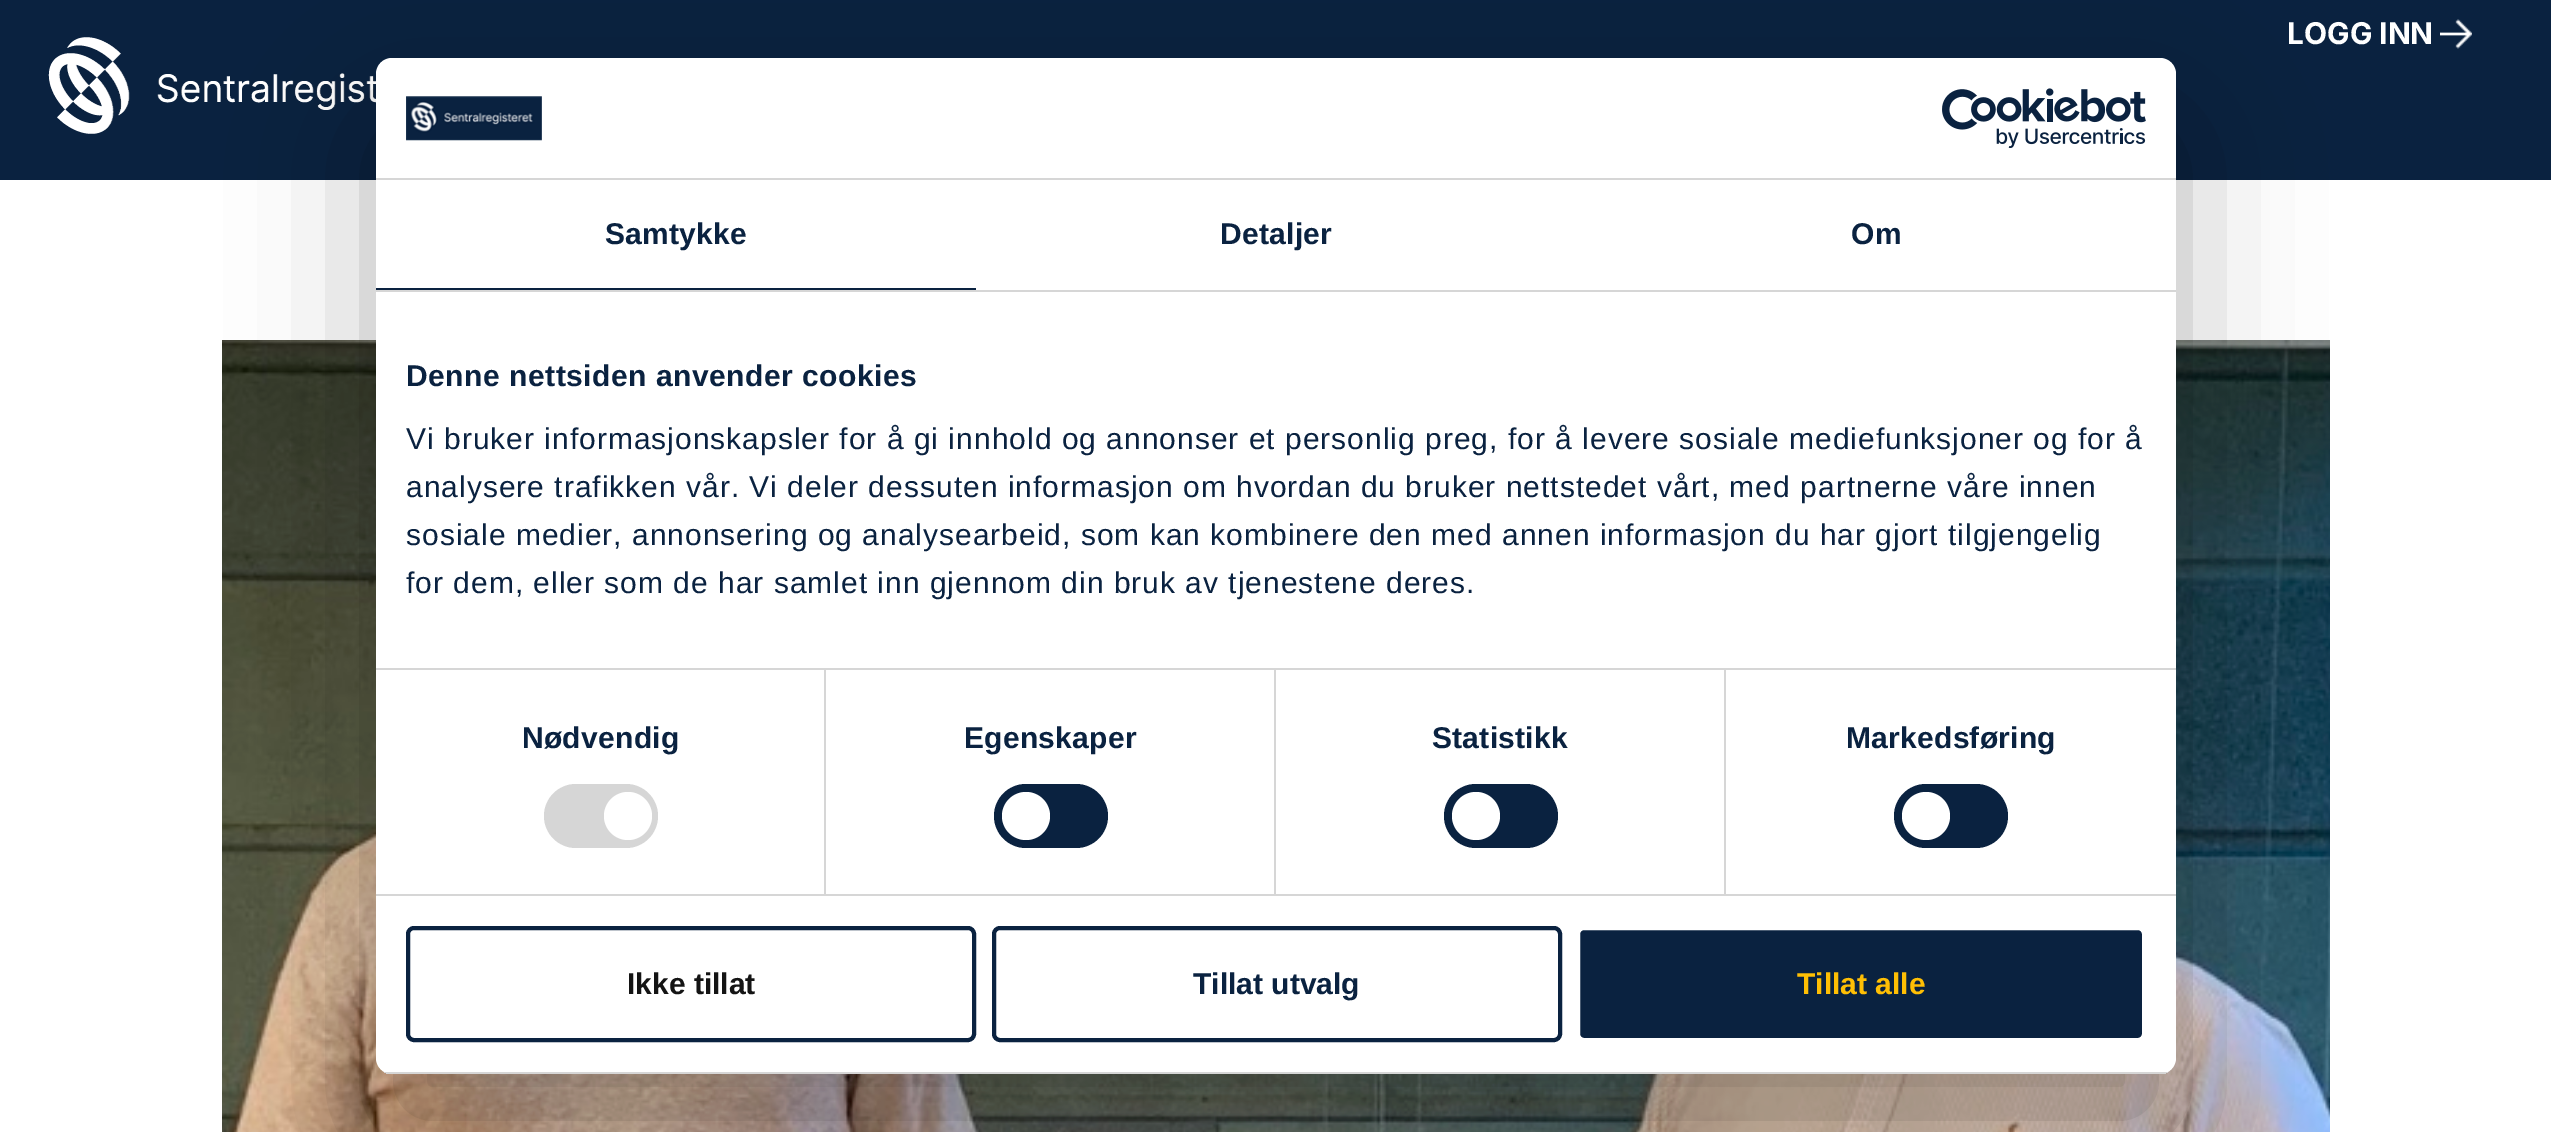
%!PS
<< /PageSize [2551 1132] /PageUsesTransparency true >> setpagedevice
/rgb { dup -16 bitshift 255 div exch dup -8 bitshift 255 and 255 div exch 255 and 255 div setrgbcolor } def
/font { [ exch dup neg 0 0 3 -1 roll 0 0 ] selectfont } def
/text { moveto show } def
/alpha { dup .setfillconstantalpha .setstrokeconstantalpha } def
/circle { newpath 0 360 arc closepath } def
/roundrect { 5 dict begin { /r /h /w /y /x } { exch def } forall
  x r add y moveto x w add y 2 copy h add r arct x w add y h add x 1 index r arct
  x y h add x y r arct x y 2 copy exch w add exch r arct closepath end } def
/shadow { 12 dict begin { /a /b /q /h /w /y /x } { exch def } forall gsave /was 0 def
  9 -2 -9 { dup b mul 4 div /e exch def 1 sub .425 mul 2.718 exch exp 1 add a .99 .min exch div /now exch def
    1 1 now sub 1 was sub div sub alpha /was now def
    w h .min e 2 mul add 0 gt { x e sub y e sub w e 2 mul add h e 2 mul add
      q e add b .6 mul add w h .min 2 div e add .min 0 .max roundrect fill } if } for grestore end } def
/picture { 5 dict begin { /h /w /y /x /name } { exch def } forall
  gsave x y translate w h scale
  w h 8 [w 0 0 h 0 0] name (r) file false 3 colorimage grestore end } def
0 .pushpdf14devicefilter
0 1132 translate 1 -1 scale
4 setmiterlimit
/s1 { /Inter-Bold 30 font 16#FFFFFF rgb } def
/s2 { /LiberationSans-Bold 30 font 16#141414 rgb } def
/s3 { /LiberationSans-Bold 30 font 16#0A2240 rgb } def
/s4 { /LiberationSans-Bold 30 font 16#FFBF04 rgb } def
16#FFFFFF rgb
0 0 2551 1132 rectfill
16#0A2240 rgb
0 0 2551 180 rectfill
s1
(LOGG INN) 2287 44 text
(pic1.raw) 2440 19 32 30 picture
(pic2.raw) 48 37 328 97 picture
(pic3.raw) 222 340 2108 792 picture
16#000000 rgb
376 122 1800 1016 16 68 0.3 shadow
16#FFFFFF rgb
376 58 1800 1016 16 roundrect fill
16#D6D6D6 rgb
376 178 1800 2 rectfill
(pic4.raw) 406 96 136 45 picture
(pic5.raw) 1942 88 204 60 picture
376 290 1800 2 rectfill
16#0A2240 rgb
376 288 600 2 rectfill
/LiberationSans-Bold 30 font
605 244 moveto 0.25 0 (Samtykke) ashow
1220 244 moveto 0.25 0 (Detaljer) ashow
1851 244 moveto 0.25 0 (Om) ashow
16#D6D6D6 rgb
376 668 1800 2 rectfill
16#0A2240 rgb
406 386 moveto 0.5 0 (Denne nettsiden anvender cookies) ashow
/LiberationSans-Regular 30 font
406 449 moveto 1 0 (Vi bruker informasjonskapsler for å gi innhold og annonser et personlig preg, for å levere sosiale mediefunksjoner og for å) ashow
406 497 moveto 1 0 (analysere trafikken vår. Vi deler dessuten informasjon om hvordan du bruker nettstedet vårt, med partnerne våre innen) ashow
406 545 moveto 1 0 (sosiale medier, annonsering og analysearbeid, som kan kombinere den med annen informasjon du har gjort tilgjengelig) ashow
406 593 moveto 1 0 (for dem, eller som de har samlet inn gjennom din bruk av tjenestene deres.) ashow
16#D6D6D6 rgb
376 894 1800 2 rectfill
824 670 2 224 rectfill
/LiberationSans-Bold 30 font
16#0A2240 rgb
522 748 moveto 0.25 0 (Nødvendig) ashow
16#D6D6D6 rgb
544 784 114 64 32 roundrect fill
16#FFFFFF rgb
628 816 24 circle fill
16#D6D6D6 rgb
1274 670 2 224 rectfill
16#0A2240 rgb
964 748 moveto 0.25 0 (Egenskaper) ashow
994 784 114 64 32 roundrect fill
16#FFFFFF rgb
1026 816 24 circle fill
16#D6D6D6 rgb
1724 670 2 224 rectfill
16#0A2240 rgb
1432 748 moveto 0.25 0 (Statistikk) ashow
1444 784 114 64 32 roundrect fill
16#FFFFFF rgb
1476 816 24 circle fill
16#0A2240 rgb
1846 748 moveto 0.25 0 (Markedsføring) ashow
1894 784 114 64 32 roundrect fill
16#FFFFFF rgb
1926 816 24 circle fill
gsave
376 58 1800 1016 16 roundrect clip newpath
16#D6D6D6 rgb
376 1072 1800 2 rectfill
grestore
16#0A2240 rgb
4 setlinewidth
408 928 566 112 6 roundrect stroke
s2
(Ikke tillat) 627 994 text
16#0A2240 rgb
994 928 566 112 6 roundrect stroke
(Tillat utvalg) 1193 994 text
1578 928 566 112 6 roundrect gsave fill grestore
16#FFFFFF rgb
stroke
s4
(Tillat alle) 1797 994 text
.poppdf14devicefilter showpage
